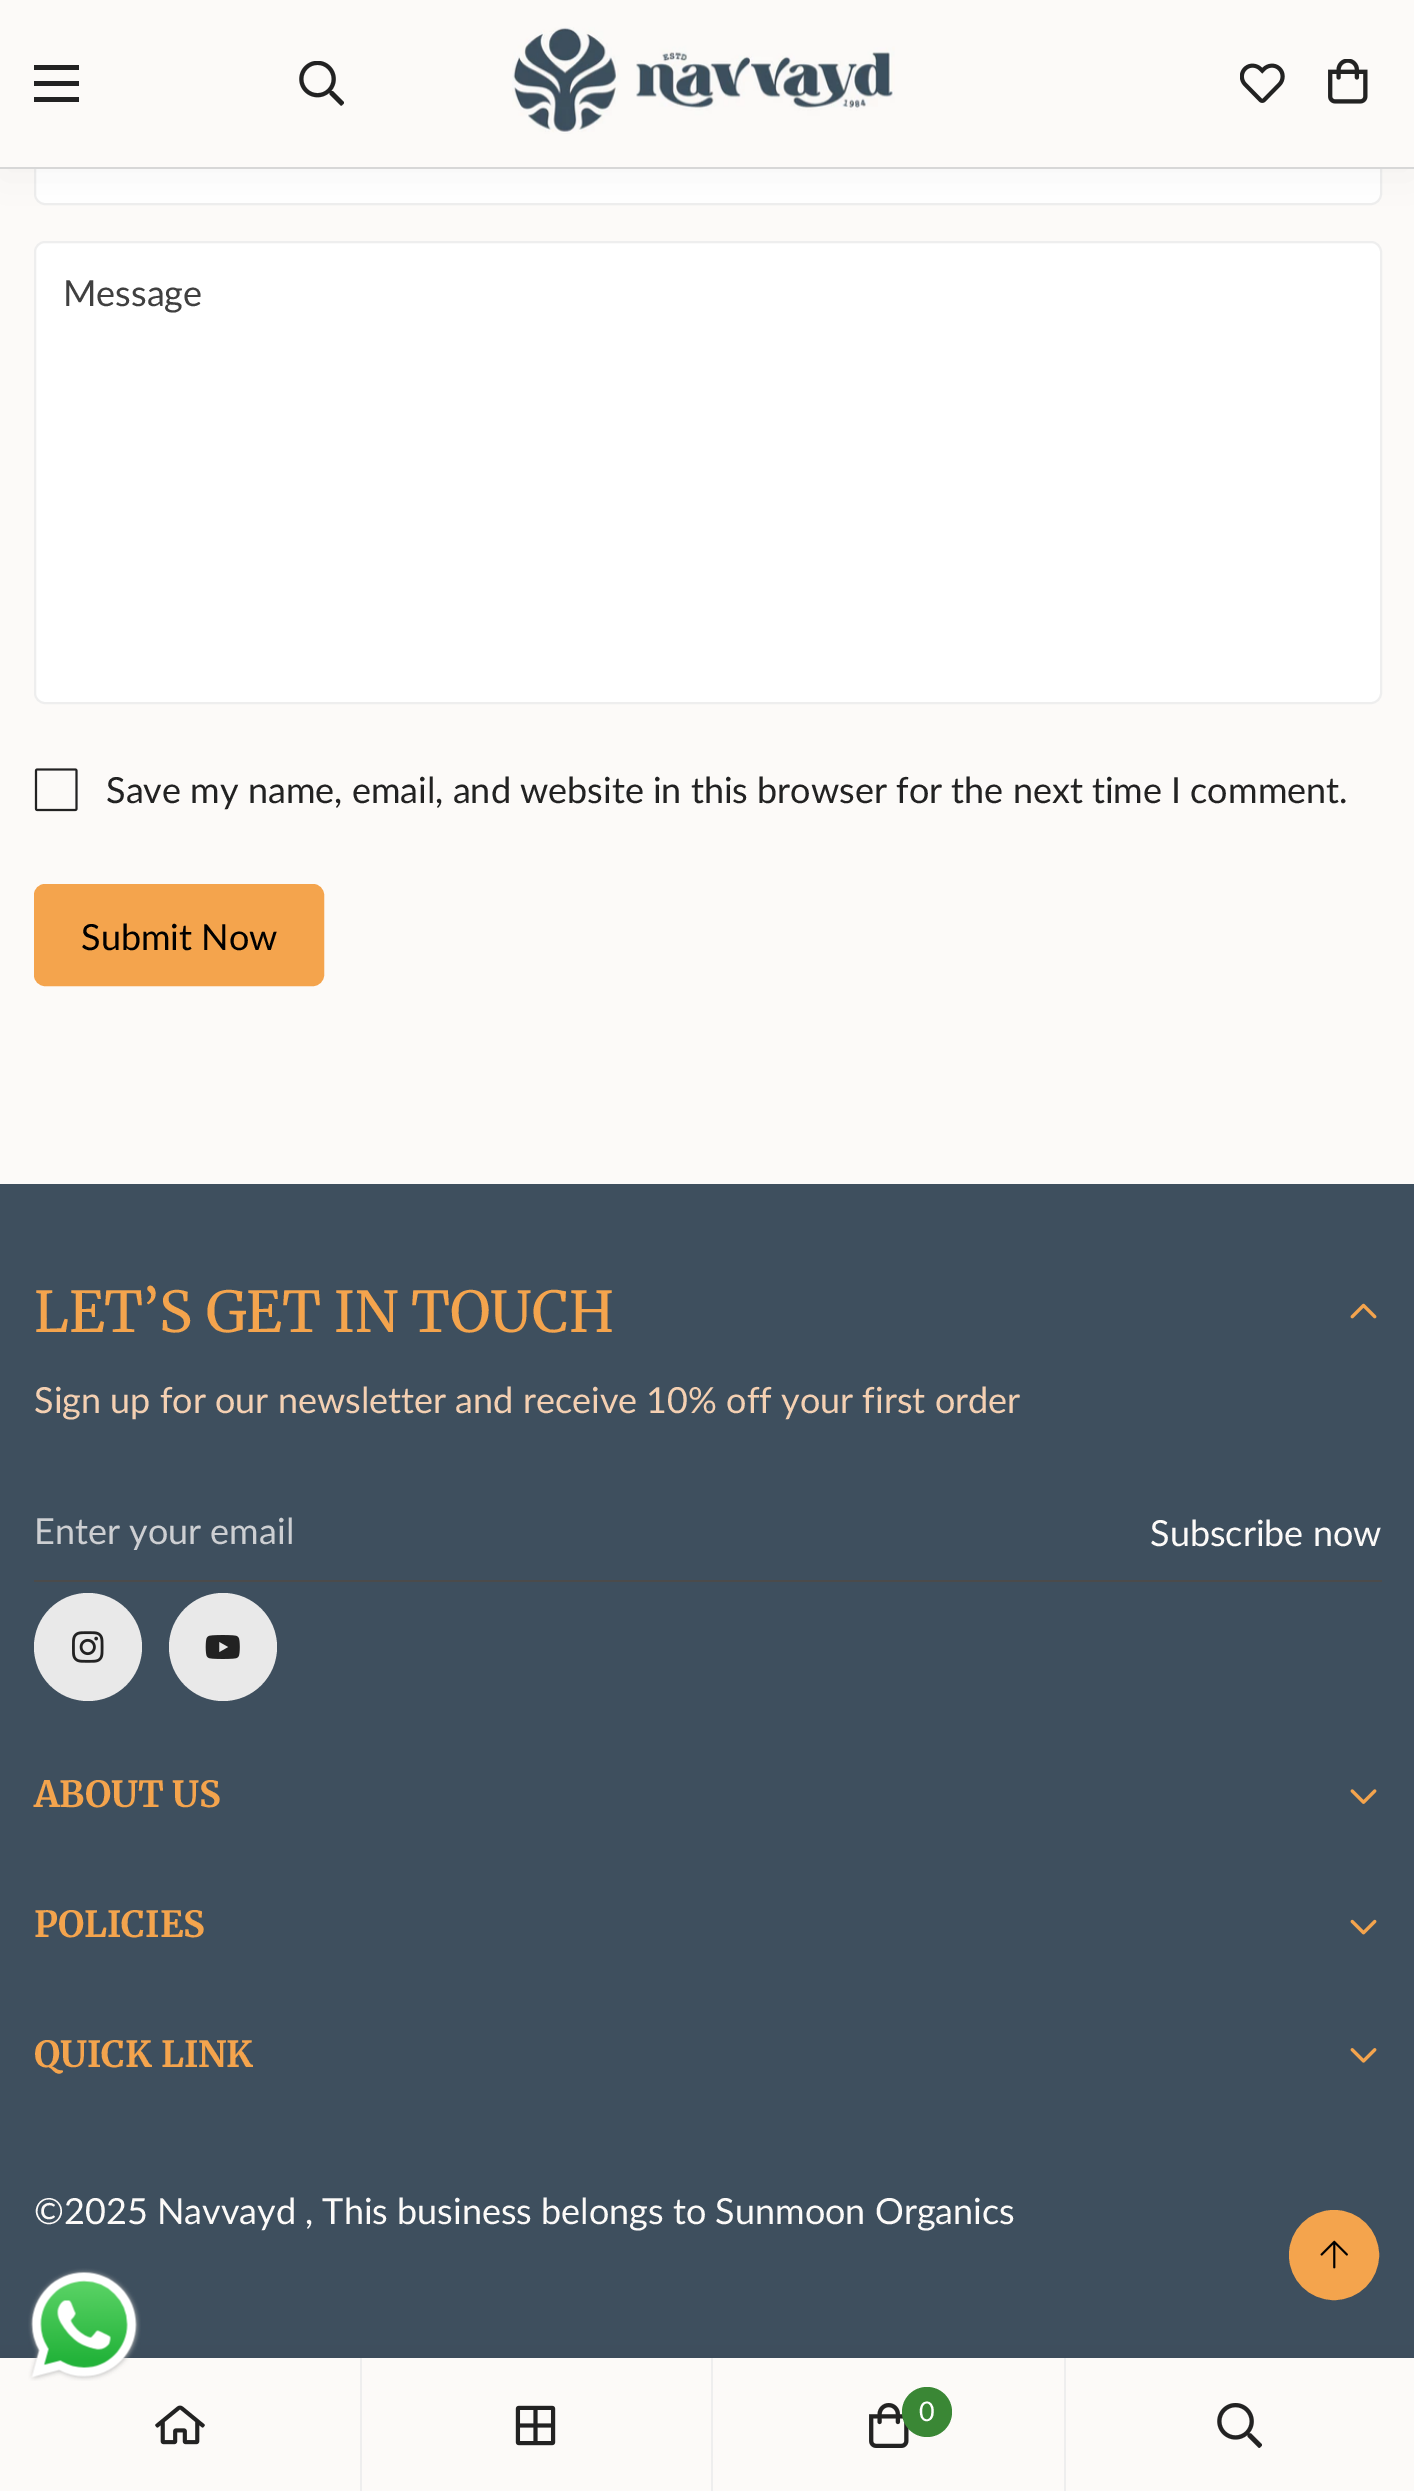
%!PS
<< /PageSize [1414 2491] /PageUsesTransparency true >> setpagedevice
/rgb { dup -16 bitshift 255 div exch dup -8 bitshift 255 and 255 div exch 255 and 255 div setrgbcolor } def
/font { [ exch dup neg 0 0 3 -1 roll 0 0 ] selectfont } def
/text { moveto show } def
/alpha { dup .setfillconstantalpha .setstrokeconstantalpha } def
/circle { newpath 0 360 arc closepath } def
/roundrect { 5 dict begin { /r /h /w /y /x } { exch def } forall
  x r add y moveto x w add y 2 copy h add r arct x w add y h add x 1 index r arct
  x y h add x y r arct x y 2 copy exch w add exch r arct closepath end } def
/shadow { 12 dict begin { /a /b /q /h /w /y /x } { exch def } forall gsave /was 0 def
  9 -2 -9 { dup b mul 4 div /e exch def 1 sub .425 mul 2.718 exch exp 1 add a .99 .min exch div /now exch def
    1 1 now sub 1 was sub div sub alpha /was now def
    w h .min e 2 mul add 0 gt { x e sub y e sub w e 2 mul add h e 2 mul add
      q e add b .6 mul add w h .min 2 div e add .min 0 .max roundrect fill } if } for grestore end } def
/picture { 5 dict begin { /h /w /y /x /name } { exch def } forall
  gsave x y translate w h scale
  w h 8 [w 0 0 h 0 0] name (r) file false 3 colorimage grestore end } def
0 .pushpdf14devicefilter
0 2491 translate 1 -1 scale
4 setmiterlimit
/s1 { /Lato-Regular 36 font 16#404040 rgb } def
/s2 { /Lato-Regular 36 font 16#222222 rgb } def
/s3 { /Lato-Regular 36 font 16#000000 rgb } def
/s4 { /Merriweather-Regular 56.25 font 16#F4A44D rgb } def
/s5 { /Lato-Regular 36 font 16#F4D0B2 rgb } def
/s6 { /Lato-Regular 36 font 16#CDCFD2 rgb } def
/s7 { /Lato-Regular 36 font 16#FCFAF8 rgb } def
/s8 { /Merriweather-Bold 36 font 16#F4A44D rgb } def
/s9 { /Lato-Regular 27 font 16#FFFFFF rgb } def
16#FCFAF8 rgb
0 0 1414 2491 rectfill
16#FFFFFF rgb
35 102 1346 102 10 roundrect gsave fill grestore
16#EEEEEE rgb
2 setlinewidth
stroke
16#FFFFFF rgb
35 242 1346 461 10 roundrect gsave fill grestore
16#EEEEEE rgb
stroke
16#000000 rgb
0 9 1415 169 0 22.5 0.04 shadow
16#FCFAF8 rgb
0 0 1414 167 rectfill
16#D7D7D7 rgb
0 167 1414 2 rectfill
16#222222 rgb
34 81 45 5 rectfill
34 65 45 5 rectfill
34 97 45 5 rectfill
(pic1.raw) 299 61 45 45 picture
(pic2.raw) 512 27 383 107 picture
(pic3.raw) 1240 63 45 40 picture
(pic4.raw) 1328 59 40 45 picture
s1
(Message) 63 306 text
(pic5.raw) 34 768 44 44 picture
s2
(Save my name, email, and website in this browser for the next time I comment.) 106 803 text
16#F4A44D rgb
35 885 288 100 10 roundrect gsave fill grestore
stroke
s3
(Submit Now) 81 950 text
16#3E4F5E rgb
0 1184 1414 1174 rectfill
s4
(LET’S GET IN TOUCH) 34 1332 text
(pic6.raw) 1350 1303 27 16 picture
s5
(Sign up for our newsletter and receive 10% off your first order) 34 1413 text
16#4B4B4B rgb
34 1580 1348 2 rectfill
gsave
34 1508 1321 42 rectclip
s6
(Enter your email) 34 1544 text
grestore
s7
(Subscribe now) 1150 1546 text
16#E9E9E9 rgb
88 1647 54 circle fill
(pic7.raw) 72 1631 32 32 picture
223 1647 54 circle fill
(pic8.raw) 205 1635 35 24 picture
s8
(ABOUT US) 34 1807 text
(pic9.raw) 1350 1789 27 15 picture
(POLICIES) 34 1937 text
(pic10.raw) 1350 1919 27 16 picture
(QUICK LINK) 34 2067 text
(pic11.raw) 1350 2048 27 15 picture
s7
(©2025 Navvayd , This business belongs to Sunmoon Organics) 34 2224 text
16#F4A44D rgb
1334 2255 44 circle gsave fill grestore
stroke
(pic12.raw) 1320 2240 28 29 picture
16#222222 rgb
0 2358 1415 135 0 11 0.12 shadow
16#FCFAF8 rgb
0 2358 1414 133 rectfill
(pic13.raw) 28 2268 113 113 picture
16#EEEEEE rgb
360 2358 2 133 rectfill
(pic14.raw) 155 2405 50 40 picture
711 2358 2 133 rectfill
(pic15.raw) 515 2405 41 41 picture
1064 2358 2 133 rectfill
(pic16.raw) 869 2403 40 45 picture
16#3A8735 rgb
927 2412 25 circle fill
s9
(0) 919 2421 text
(pic17.raw) 1217 2403 45 45 picture
.poppdf14devicefilter showpage
